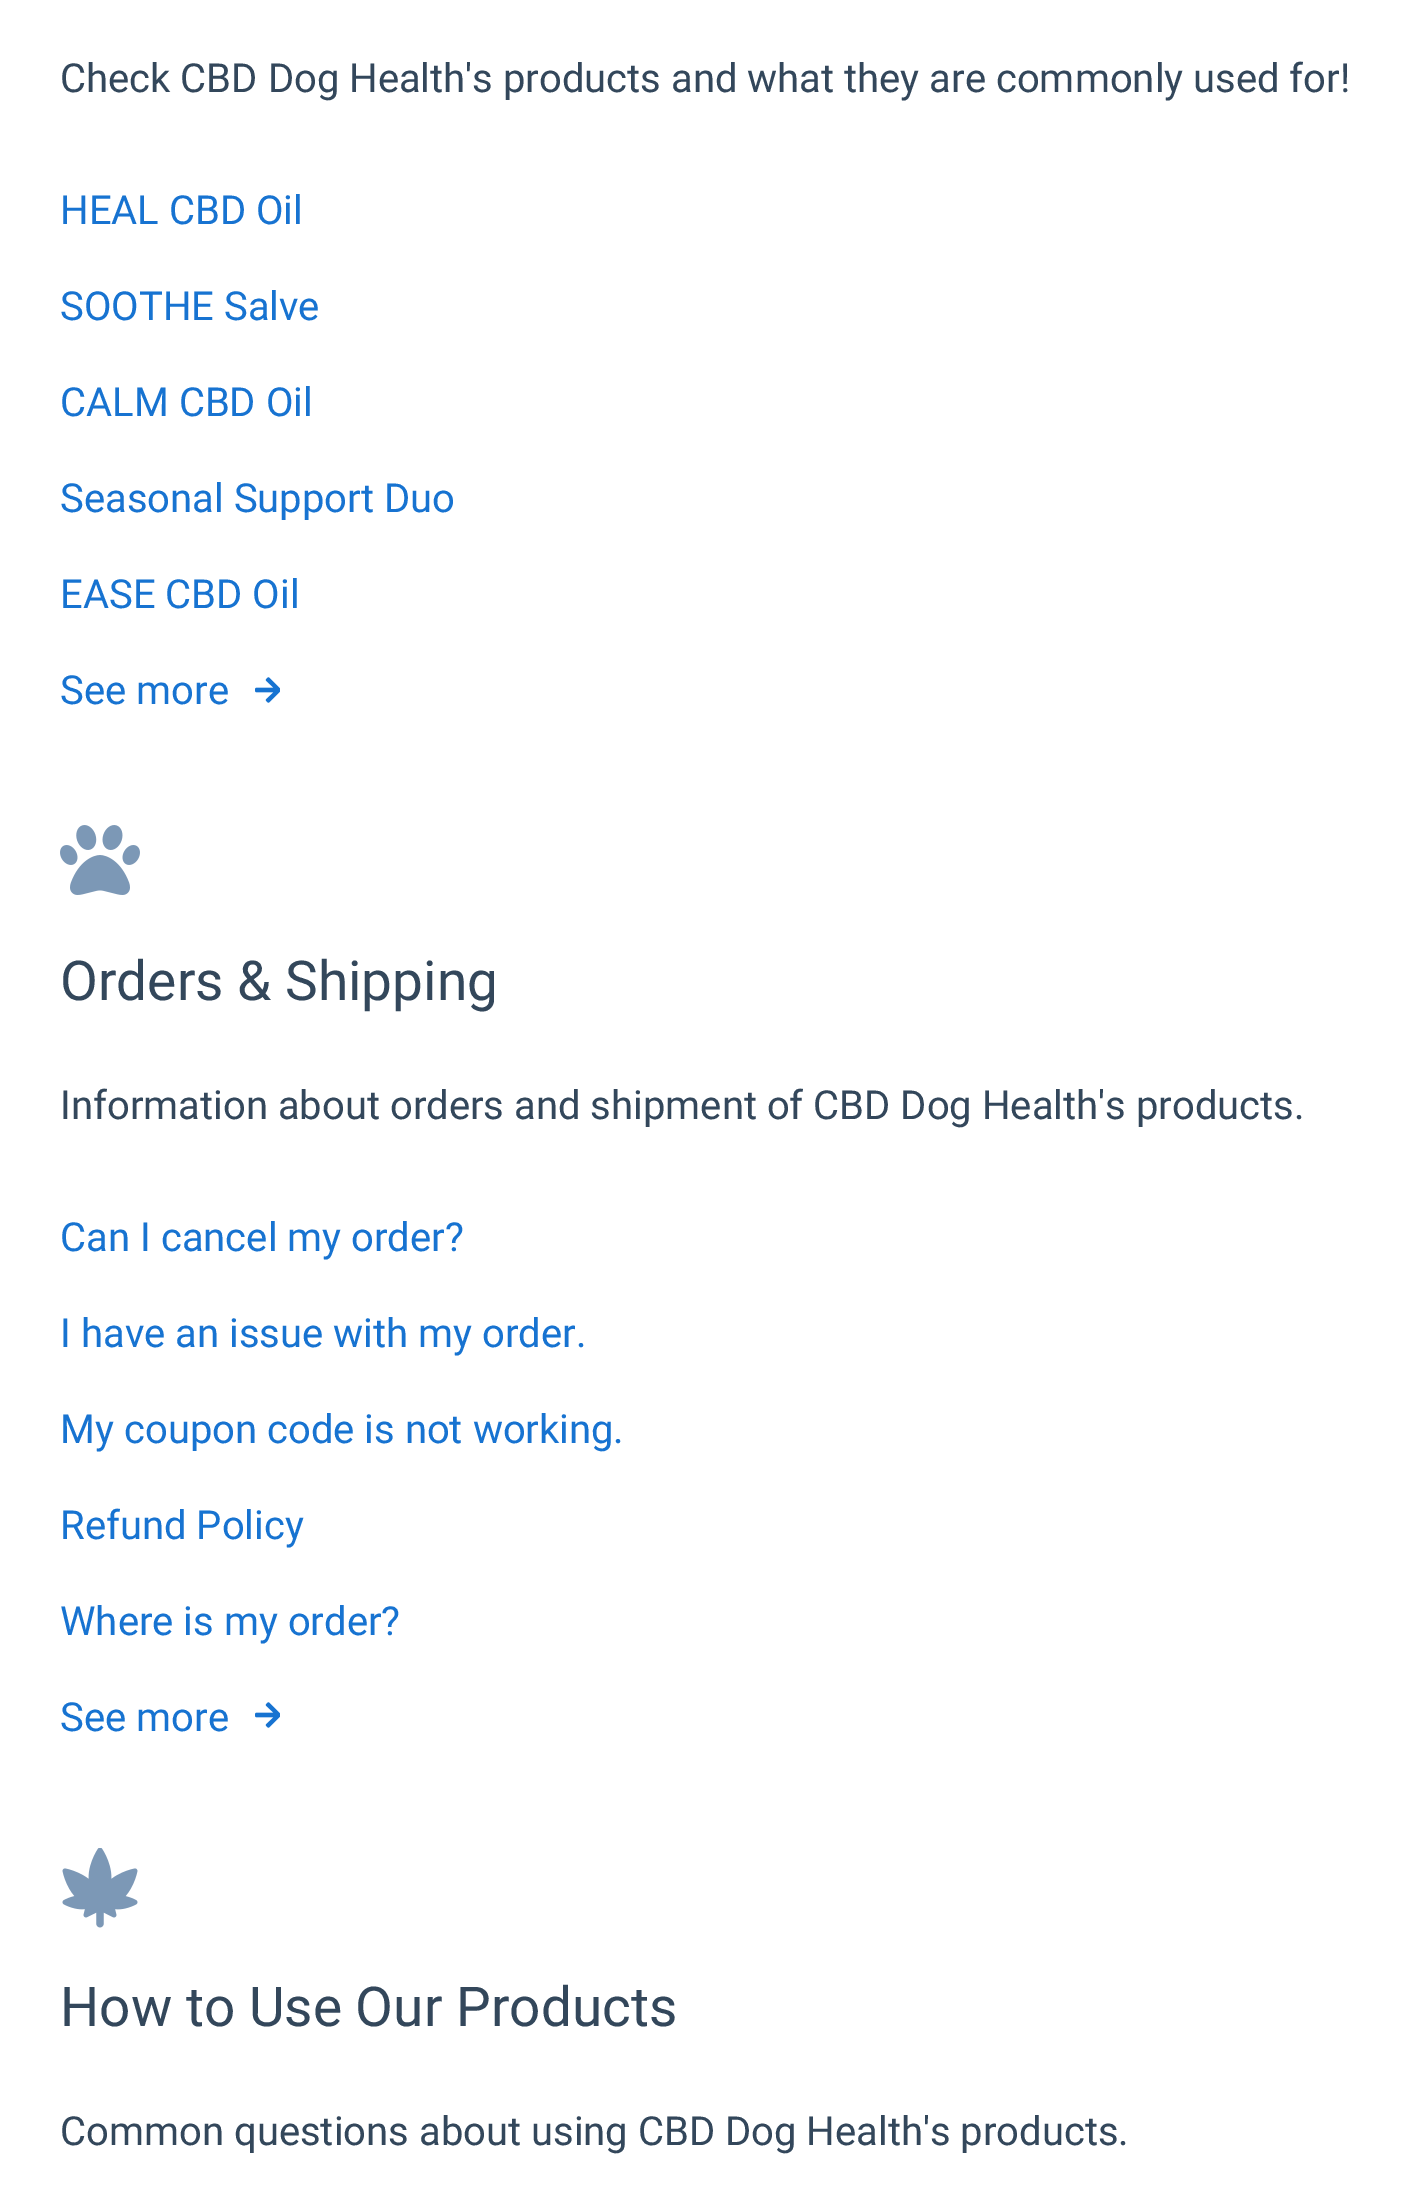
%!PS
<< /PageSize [1424 2185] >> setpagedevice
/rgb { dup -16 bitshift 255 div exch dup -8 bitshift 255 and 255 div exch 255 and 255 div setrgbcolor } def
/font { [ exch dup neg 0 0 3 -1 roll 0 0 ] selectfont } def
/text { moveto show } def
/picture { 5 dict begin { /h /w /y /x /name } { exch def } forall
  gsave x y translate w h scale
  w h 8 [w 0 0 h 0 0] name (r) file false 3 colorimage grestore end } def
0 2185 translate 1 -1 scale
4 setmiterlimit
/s1 { /Roboto-Regular 40 font 16#33475B rgb } def
/s2 { /Roboto-Regular 40 font 16#1773D1 rgb } def
/s3 { /Roboto-Regular 55 font 16#33475B rgb } def
16#FFFFFF rgb
0 0 1424 2185 rectfill
s1
(Check CBD Dog Health's products and what they are commonly used for!) 60 92 text
s2
(HEAL CBD Oil) 60 224 text
(SOOTHE Salve) 60 320 text
(CALM CBD Oil) 60 416 text
(Seasonal Support Duo) 60 512 text
(EASE CBD Oil) 60 608 text
(See more) 60 704 text
(pic1.raw) 255 677 25 26 picture
(pic2.raw) 60 825 80 70 picture
s3
(Orders & Shipping) 60 1000 text
s1
(Information about orders and shipment of CBD Dog Health's products.) 60 1119 text
s2
(Can I cancel my order?) 60 1251 text
(I have an issue with my order.) 60 1347 text
(My coupon code is not working.) 60 1443 text
(Refund Policy) 60 1539 text
(Where is my order?) 60 1635 text
(See more) 60 1731 text
(pic1.raw) 255 1702 25 26 picture
(pic3.raw) 62 1848 76 80 picture
s3
(How to Use Our Products) 60 2026 text
s1
(Common questions about using CBD Dog Health's products.) 60 2145 text
showpage
